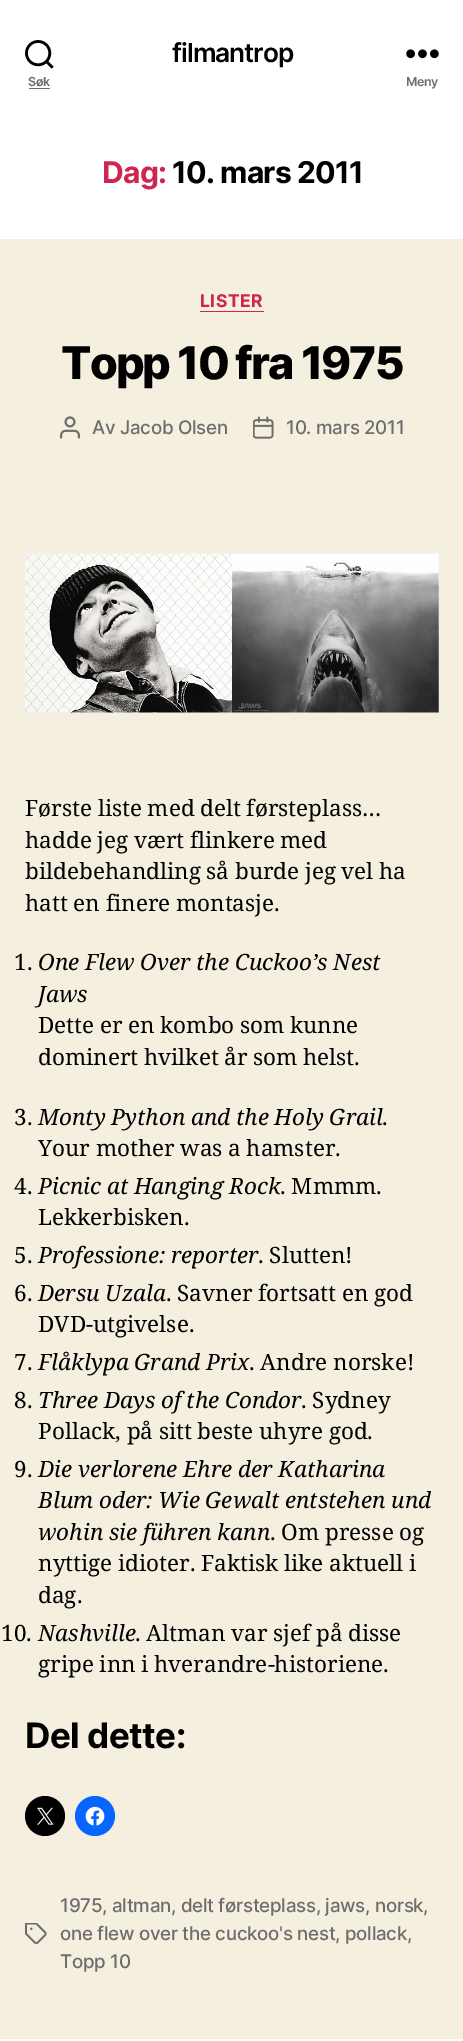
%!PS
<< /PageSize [463 2041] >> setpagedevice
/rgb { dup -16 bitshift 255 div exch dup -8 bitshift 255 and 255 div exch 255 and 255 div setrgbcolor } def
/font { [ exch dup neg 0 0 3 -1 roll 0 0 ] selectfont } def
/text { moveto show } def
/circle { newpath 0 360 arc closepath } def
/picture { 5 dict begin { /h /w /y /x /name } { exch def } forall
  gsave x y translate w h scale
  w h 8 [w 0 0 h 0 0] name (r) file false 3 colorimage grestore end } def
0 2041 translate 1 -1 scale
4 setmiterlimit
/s1 { /NotoSerif-Regular 22.5 font 16#000000 rgb } def
/s2 { /NotoSerif-Italic 22.5 font 16#000000 rgb } def
16#F5EFE0 rgb
0 0 463 2041 rectfill
16#FFFFFF rgb
0 0 463 239 rectfill
/Inter-SemiBold 26.25 font
16#000000 rgb
172 62 moveto -1 0 (filmantrop) ashow
(pic1.raw) 25 40 29 29 picture
/Inter-SemiBold 12.5 font
16#6D6D6D rgb
28 86 moveto -0.5 0 (Søk) ashow
29 88 21 1 rectfill
(pic2.raw) 406 49 33 10 picture
406 86 moveto -0.5 0 (Meny) ashow
/Inter-Bold 30 font
16#CD2653 rgb
102 183 moveto -0.75 0 (Dag:) ashow
16#000000 rgb
172 183 moveto -0.75 0 (10. mars 2011) ashow
16#CD2653 rgb
200 311 64 1 rectfill
/Inter-Bold 17.5 font
200 307 moveto 0.5 0 (LISTER) ashow
/Inter-ExtraBold 45 font
16#000000 rgb
61 379 moveto -1.9 0 (Topp 10 fra 1975) ashow
(pic3.raw) 60 416 20 23 picture
/Inter-Medium 18.75 font
16#6D6D6D rgb
92 434 moveto -0.3 0 (Av Jacob Olsen) ashow
(pic4.raw) 253 416 21 23 picture
286 434 moveto -0.3 0 (10. mars 2011) ashow
(pic5.raw) 25 553 414 160 picture
/NotoSerif-Regular 22.5 font
16#000000 rgb
25 816 moveto -0.25 0 32 (Første liste med delt førsteplass…) widthshow
25 848 moveto -0.25 0 32 (hadde jeg vært flinkere med) widthshow
25 879 moveto -0.25 0 32 (bildebehandling så burde jeg vel ha) widthshow
25 911 moveto -0.25 0 32 (hatt en finere montasje.) widthshow
(1.) 14 970 text
/NotoSerif-Italic 22.5 font
38 970 moveto -0.25 0 32 (One Flew Over the Cuckoo’s Nest) widthshow
(Jaws) 38 1002 text
/NotoSerif-Regular 22.5 font
38 1033 moveto -0.25 0 32 (Dette er en kombo som kunne) widthshow
38 1065 moveto -0.25 0 32 (dominert hvilket år som helst.) widthshow
(3.) 14 1125 text
/NotoSerif-Italic 22.5 font
38 1125 moveto -0.25 0 32 (Monty Python and the Holy Grail) widthshow
s1
(.) 382 1125 text
38 1156 moveto -0.25 0 32 (Your mother was a hamster.) widthshow
(4.) 14 1194 text
/NotoSerif-Italic 22.5 font
38 1194 moveto -0.25 0 32 (Picnic at Hanging Rock) widthshow
s1
(. Mmmm.) 280 1194 text
(Lekkerbisken.) 38 1225 text
(5.) 14 1263 text
/NotoSerif-Italic 22.5 font
38 1263 moveto -0.25 0 32 (Professione: reporter) widthshow
s1
(. Slutten!) 258 1263 text
(6.) 14 1301 text
/NotoSerif-Italic 22.5 font
38 1301 moveto -0.25 0 32 (Dersu Uzala) widthshow
/NotoSerif-Regular 22.5 font
166 1301 moveto -0.25 0 32 (. Savner fortsatt en god) widthshow
(DVD-utgivelse.) 38 1332 text
(7.) 14 1370 text
/NotoSerif-Italic 22.5 font
38 1370 moveto -0.25 0 32 (Flåklypa Grand Prix) widthshow
s1
(. Andre norske!) 249 1370 text
(8.) 14 1408 text
/NotoSerif-Italic 22.5 font
38 1408 moveto -0.25 0 32 (Three Days of the Condor) widthshow
s1
(. Sydney) 301 1408 text
38 1439 moveto -0.25 0 32 (Pollack, på sitt beste uhyre god.) widthshow
(9.) 14 1477 text
/NotoSerif-Italic 22.5 font
38 1477 moveto -0.25 0 32 (Die verlorene Ehre der Katharina) widthshow
38 1508 moveto -0.25 0 32 (Blum oder: Wie Gewalt entstehen und) widthshow
38 1540 moveto -0.25 0 32 (wohin sie führen kann) widthshow
/NotoSerif-Regular 22.5 font
270 1540 moveto -0.25 0 32 (. Om presse og) widthshow
38 1571 moveto -0.25 0 32 (nyttige idioter. Faktisk like aktuell i) widthshow
(dag.) 38 1603 text
(10.) 1 1641 text
s2
(Nashville) 38 1641 text
/NotoSerif-Regular 22.5 font
135 1641 moveto -0.25 0 32 (. Altman var sjef på disse) widthshow
38 1672 moveto -0.25 0 32 (gripe inn i hverandre-historiene.) widthshow
/Inter-Bold 35 font
25 1748 moveto -0.5 0 (Del dette:) ashow
45 1816 20 circle fill
(pic6.raw) 37 1807 17 18 picture
16#0866FF rgb
95 1816 20 circle fill
(pic7.raw) 85 1806 20 20 picture
(pic8.raw) 25 1923 22 22 picture
/Inter-Medium 18.75 font
16#6D6D6D rgb
60 1912 moveto -0.3 0 (1975, altman, delt førsteplass, jaws, norsk,) ashow
60 1940 moveto -0.3 0 (one flew over the cuckoo's nest, pollack,) ashow
60 1968 moveto -0.3 0 (Topp 10) ashow
16#FFFFFF rgb
0 2039 463 2 rectfill
showpage
